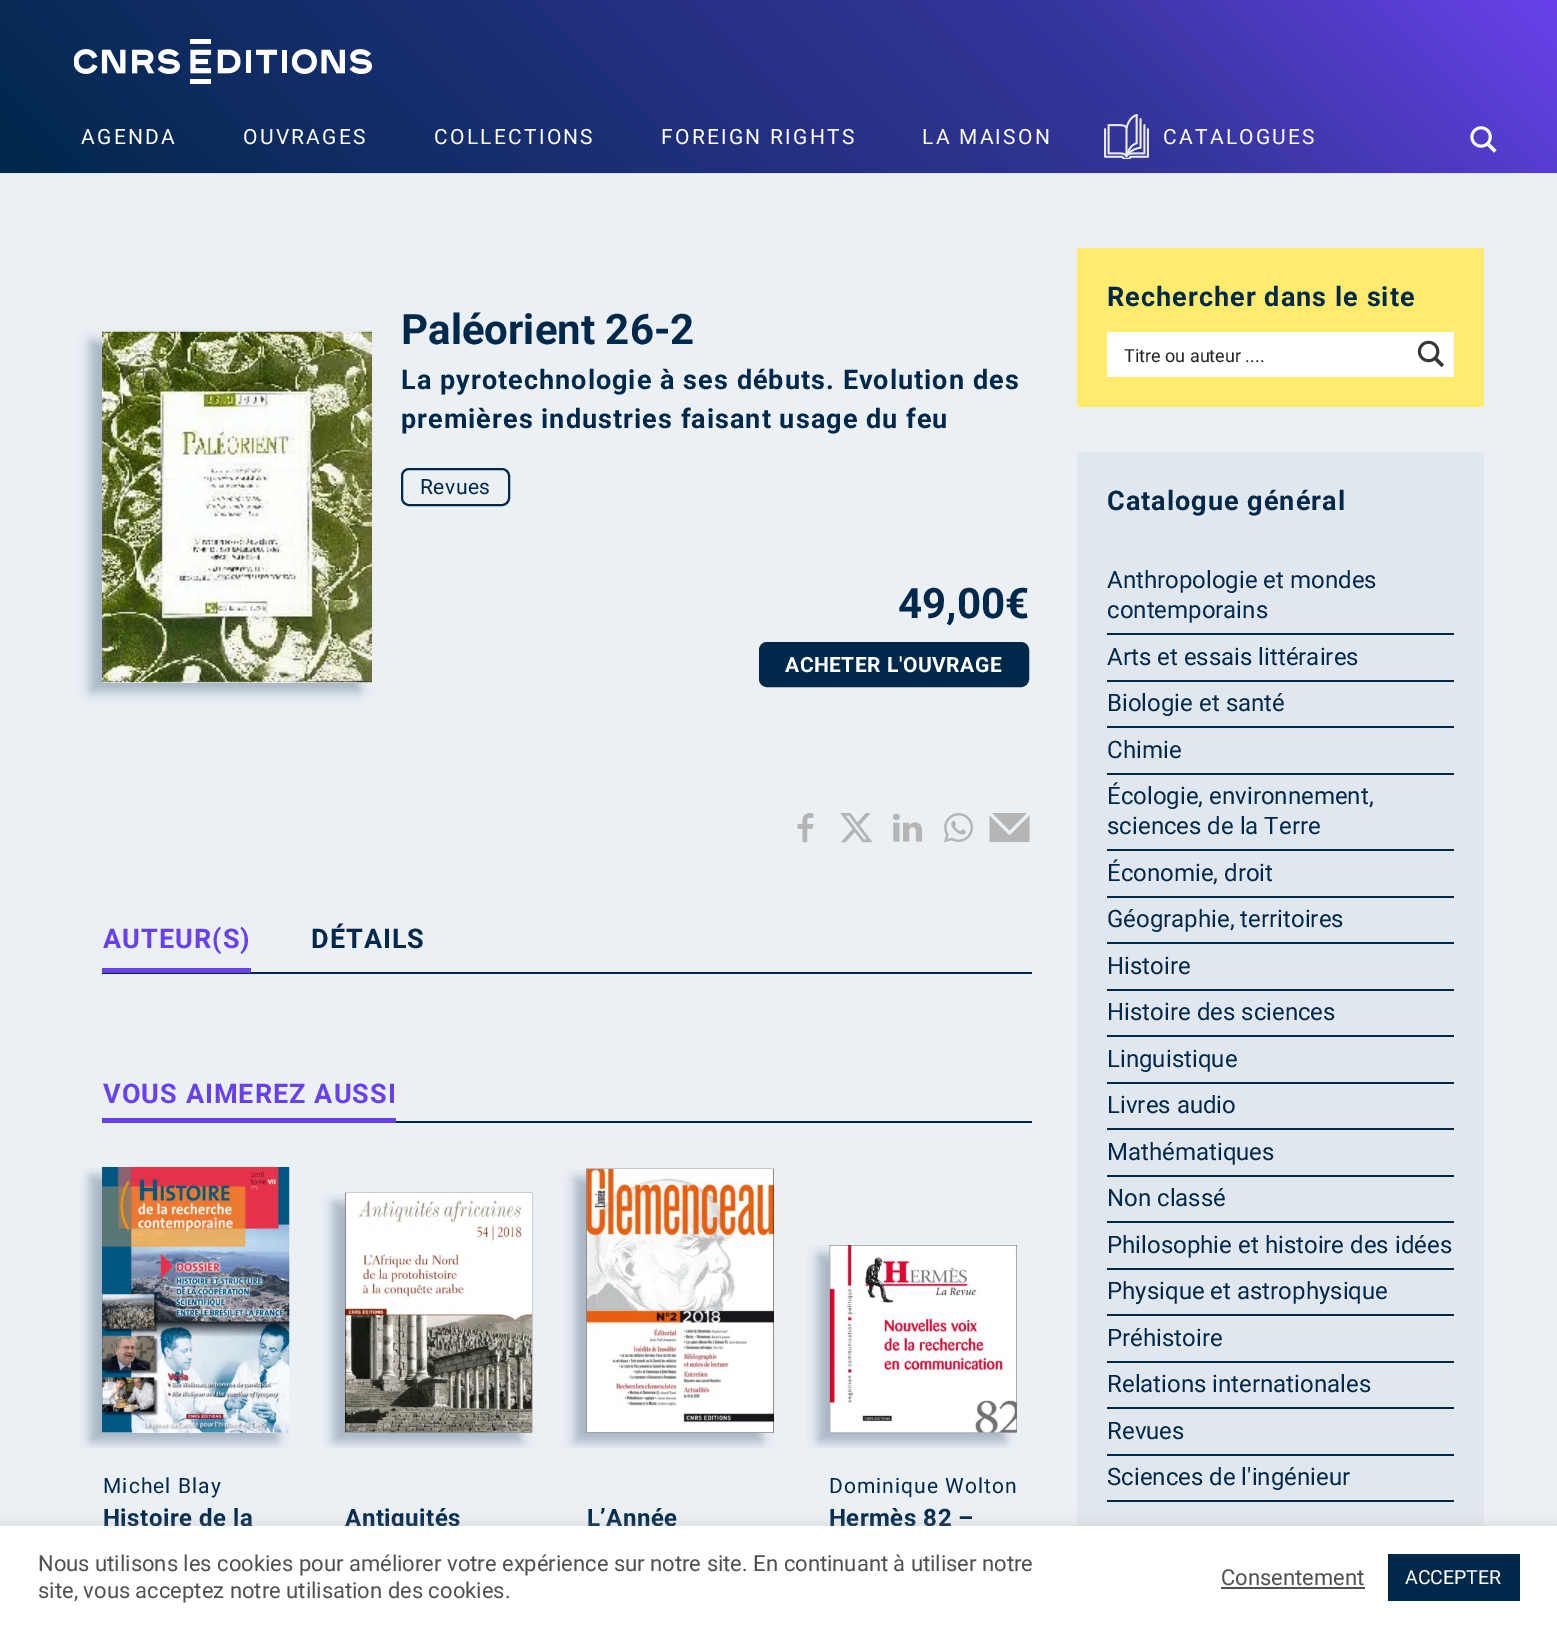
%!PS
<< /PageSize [1557 1629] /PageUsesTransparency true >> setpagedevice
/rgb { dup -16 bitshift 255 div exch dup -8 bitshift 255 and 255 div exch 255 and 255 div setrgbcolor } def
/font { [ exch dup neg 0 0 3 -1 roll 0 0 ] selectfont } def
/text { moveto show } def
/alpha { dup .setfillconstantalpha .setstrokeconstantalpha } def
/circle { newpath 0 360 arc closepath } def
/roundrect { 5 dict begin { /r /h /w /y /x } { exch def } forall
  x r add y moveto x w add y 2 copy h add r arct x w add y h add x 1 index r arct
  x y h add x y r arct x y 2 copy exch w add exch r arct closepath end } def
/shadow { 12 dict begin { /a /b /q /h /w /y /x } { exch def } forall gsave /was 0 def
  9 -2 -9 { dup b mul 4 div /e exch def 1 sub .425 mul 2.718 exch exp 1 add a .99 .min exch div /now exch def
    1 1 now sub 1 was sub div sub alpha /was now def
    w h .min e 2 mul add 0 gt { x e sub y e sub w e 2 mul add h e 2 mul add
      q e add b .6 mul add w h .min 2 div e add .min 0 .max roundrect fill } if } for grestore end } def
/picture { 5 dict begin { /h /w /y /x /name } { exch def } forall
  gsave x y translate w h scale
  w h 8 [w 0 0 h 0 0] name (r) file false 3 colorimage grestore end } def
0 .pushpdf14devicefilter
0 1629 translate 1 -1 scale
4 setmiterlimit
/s1 { /Roboto-Light 27 font 16#737661 rgb } def
/s2 { /Roboto-Bold 42 font 16#00284B rgb } def
/s3 { /Roboto-Regular 18 font 16#262626 rgb } def
/s4 { /Roboto-Regular 24 font 16#00284B rgb } def
/s5 { /Roboto-Regular 22 font 16#505050 rgb } def
/s6 { /Roboto-Regular 19.5 font 16#FFFFFF rgb } def
16#EBF0F5 rgb
0 0 1557 1629 rectfill
16#DFE4E9 rgb
0 173 1557 1 rectfill
gsave 0 0 moveto 1557 0 lineto 1557 173 lineto 0 173 lineto closepath clip newpath
<< /ShadingType 2 /ColorSpace /DeviceRGB /Coords [346 519 1211 -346] /Extend [true true] /Function << /FunctionType 3 /Domain [0 1] /Functions [<< /FunctionType 2 /Domain [0 1] /C0 [0 0.157 0.294] /C1 [0.208 0.208 0.612] /N 1 >> << /FunctionType 2 /Domain [0 1] /C0 [0.208 0.208 0.612] /C1 [0.412 0.255 0.922] /N 1 >>] /Bounds [0.7] /Encode [0 1 0 1] >> >> shfill grestore
(pic1.raw) 74 39 298 45 picture
/Roboto-Regular 21 font
16#FFFFFF rgb
81 144 moveto 2.25 0 (AGENDA) ashow
243 144 moveto 2.25 0 (OUVRAGES) ashow
434 144 moveto 2.25 0 (COLLECTIONS) ashow
661 144 moveto 2.25 0 (FOREIGN RIGHTS) ashow
922 144 moveto 2.25 0 (LA MAISON) ashow
(pic2.raw) 1104 114 45 45 picture
1163 144 moveto 2.25 0 (CATALOGUES) ashow
(pic3.raw) 1470 126 27 27 picture
16#00284B rgb
90 341 270 351 0 6 0.3 shadow
16#F0F0F0 rgb
102 682 270 1 rectfill
(pic4.raw) 102 331 270 352 picture
0.35 alpha
16#333333 rgb
2 setlinewidth
143 372 17 circle stroke
1 alpha
s1
(+) 136 381 text
s2
(Paléorient 26-2) 401 344 text
/Roboto-Bold 27 font
401 389 moveto 1.05 0 (La pyrotechnologie à ses débuts. Evolution des) ashow
401 428 moveto 1.05 0 (premières industries faisant usage du feu) ashow
402 469 107 36 7 roundrect stroke
/Roboto-Regular 21 font
420 494 moveto 0.5 0 (Revues) ashow
s2
(49,00€) 898 618 text
760 643 268 43 7 roundrect gsave fill grestore
stroke
/Roboto-Bold 21 font
16#FFFFFF rgb
785 672 moveto 0.5 0 (ACHETER L'OUVRAGE) ashow
(pic5.raw) 797 813 17 30 picture
(pic6.raw) 840 813 33 30 picture
(pic7.raw) 893 813 30 29 picture
(pic8.raw) 944 813 29 30 picture
16#B5B5B5 rgb
1027 813 moveto 992 813 lineto 1009.5 830.5 lineto closepath fill
1009.5 835.5 moveto 989.5 815.5 lineto 989.5 842 lineto 1029.5 842 lineto 1029.5 815.5 lineto closepath fill
16#00284B rgb
102 972 930 2 rectfill
16#6941EB rgb
102 968 149 5 rectfill
/Roboto-Bold 27 font
103 948 moveto 1.05 0 (AUTEUR\(S\)) ashow
16#00284B rgb
311 948 moveto 1.05 0 (DÉTAILS) ashow
396 1121 636 2 rectfill
16#6941EB rgb
103 1103 moveto 1.05 0 (VOUS AIMEREZ AUSSI) ashow
102 1118 294 5 rectfill
gsave
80 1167 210 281 rectclip
16#00284B rgb
90 1176 188 266 0 6 0.3 shadow
grestore
16#F0F0F0 rgb
102 1167 188 266 rectfill
(pic9.raw) 102 1167 188 266 picture
/Roboto-Regular 21 font
16#00284B rgb
103 1493 moveto 1.05 0 (Michel Blay) ashow
/Roboto-Bold 24 font
103 1526 moveto 0.5 0 (Histoire de la) ashow
gsave
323 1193 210 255 rectclip
333 1202 188 240 0 6 0.3 shadow
grestore
16#F0F0F0 rgb
345 1193 188 240 rectfill
(pic10.raw) 345 1192 188 241 picture
16#00284B rgb
345 1526 moveto 0.5 0 (Antiquités) ashow
gsave
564 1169 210 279 rectclip
575 1178 187 264 0 6 0.3 shadow
grestore
16#F0F0F0 rgb
587 1432 187 1 rectfill
(pic11.raw) 586 1168 188 265 picture
16#00284B rgb
587 1526 moveto 0.5 0 (L’Année) ashow
gsave
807 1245 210 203 rectclip
818 1254 187 188 0 6 0.3 shadow
grestore
16#F0F0F0 rgb
830 1432 187 1 rectfill
(pic12.raw) 829 1245 188 188 picture
/Roboto-Regular 21 font
16#00284B rgb
829 1493 moveto 1.05 0 (Dominique Wolton) ashow
/Roboto-Bold 24 font
829 1526 moveto 0.5 0 (Hermès 82 –) ashow
16#FFEB6E rgb
1077 248 407 159 rectfill
/Roboto-Bold 27 font
16#00284B rgb
1107 306 moveto 1.05 0 (Rechercher dans le site) ashow
16#FFFFFF rgb
1107 332 347 45 rectfill
s3
(Titre ou auteur ....) 1124 362 text
(pic13.raw) 1417 340 28 28 picture
16#E0E7EE rgb
1077 452 407 1074 rectfill
/Roboto-Bold 27 font
16#00284B rgb
1107 510 moveto 1.05 0 (Catalogue général) ashow
1107 633 347 2 rectfill
s4
(Anthropologie et mondes) 1107 588 text
(contemporains) 1107 618 text
1107 680 347 2 rectfill
(Arts et essais littéraires) 1107 665 text
1107 726 347 2 rectfill
(Biologie et santé) 1107 711 text
1107 773 347 2 rectfill
(Chimie) 1107 758 text
1107 849 347 2 rectfill
(Écologie, environnement,) 1107 804 text
(sciences de la Terre) 1107 834 text
1107 896 347 2 rectfill
(Économie, droit) 1107 881 text
1107 942 347 2 rectfill
(Géographie, territoires) 1107 927 text
1107 989 347 2 rectfill
(Histoire) 1107 974 text
1107 1035 347 2 rectfill
(Histoire des sciences) 1107 1020 text
1107 1082 347 2 rectfill
(Linguistique) 1107 1067 text
1107 1128 347 2 rectfill
(Livres audio) 1107 1113 text
1107 1175 347 2 rectfill
(Mathématiques) 1107 1160 text
1107 1221 347 2 rectfill
(Non classé) 1107 1206 text
1107 1268 347 2 rectfill
(Philosophie et histoire des idées) 1107 1253 text
1107 1314 347 2 rectfill
(Physique et astrophysique) 1107 1299 text
1107 1361 347 2 rectfill
(Préhistoire) 1107 1346 text
1107 1407 347 2 rectfill
(Relations internationales) 1107 1392 text
1107 1454 347 2 rectfill
(Revues) 1107 1439 text
1107 1500 347 2 rectfill
(Sciences de l'ingénieur) 1107 1485 text
16#ACABAB rgb
0 1524 1557 104 0 7.5 0.3 shadow
16#FFFFFF rgb
0 1526 1557 103 rectfill
s5
(Nous utilisons les cookies pour améliorer votre expérience sur notre site. En continuant à utiliser notre) 38 1571 text
(site, vous acceptez notre utilisation des cookies.) 38 1598 text
(Consentement) 1221 1585 text
1221 1587 144 2 rectfill
16#00284B rgb
1388 1554 132 47 rectfill
s6
(ACCEPTER) 1405 1584 text
.poppdf14devicefilter showpage
